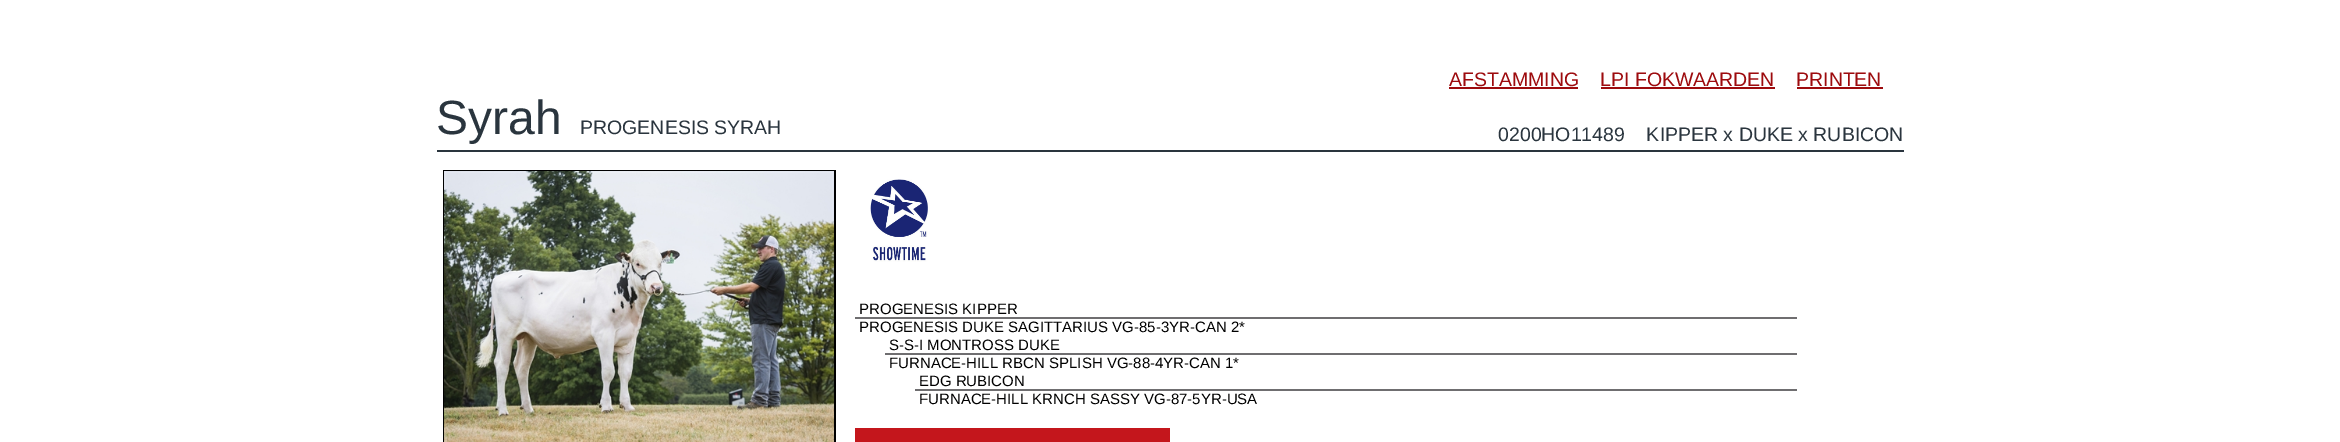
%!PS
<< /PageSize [2340 442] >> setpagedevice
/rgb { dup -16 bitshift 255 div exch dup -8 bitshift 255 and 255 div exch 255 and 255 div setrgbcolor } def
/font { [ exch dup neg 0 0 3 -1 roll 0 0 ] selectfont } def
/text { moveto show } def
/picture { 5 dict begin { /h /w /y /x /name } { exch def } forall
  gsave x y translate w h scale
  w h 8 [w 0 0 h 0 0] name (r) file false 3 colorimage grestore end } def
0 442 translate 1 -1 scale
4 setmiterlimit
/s1 { /LiberationSans-Regular 19.5 font 16#9D0B0E rgb } def
/s2 { /LiberationSans-Regular 48 font 16#2A353E rgb } def
/s3 { /LiberationSans-Regular 19.5 font 16#2A353E rgb } def
/s4 { /LiberationSans-Regular 15 font 16#000000 rgb } def
16#FFFFFF rgb
0 0 2340 442 rectfill
s1
(AFSTAMMING) 1449 86 text
1449 87 129 2 rectfill
(LPI FOKWAARDEN) 1600 86 text
1601 87 174 2 rectfill
(PRINTEN) 1796 86 text
1797 87 86 2 rectfill
s2
(Syrah) 436 134 text
s3
(PROGENESIS SYRAH) 580 134 text
(0200HO11489    KIPPER x DUKE x RUBICON) 1498 141 text
437 150 1467 2 rectfill
16#000000 rgb
443 170 393 272 rectfill
(pic1.raw) 444 171 390 271 picture
(pic2.raw) 870 179 58 83 picture
s4
(PROGENESIS KIPPER) 859 314 text
16#6F6E70 rgb
855 317 942 2 rectfill
s4
(PROGENESIS DUKE SAGITTARIUS VG-85-3YR-CAN 2*) 859 332 text
(S-S-I MONTROSS DUKE) 889 350 text
16#6F6E70 rgb
885 353 912 2 rectfill
s4
(FURNACE-HILL RBCN SPLISH VG-88-4YR-CAN 1*) 889 368 text
(EDG RUBICON) 919 386 text
16#6F6E70 rgb
915 389 882 2 rectfill
s4
(FURNACE-HILL KRNCH SASSY VG-87-5YR-USA) 919 404 text
16#C4161C rgb
855 428 315 14 rectfill
showpage
